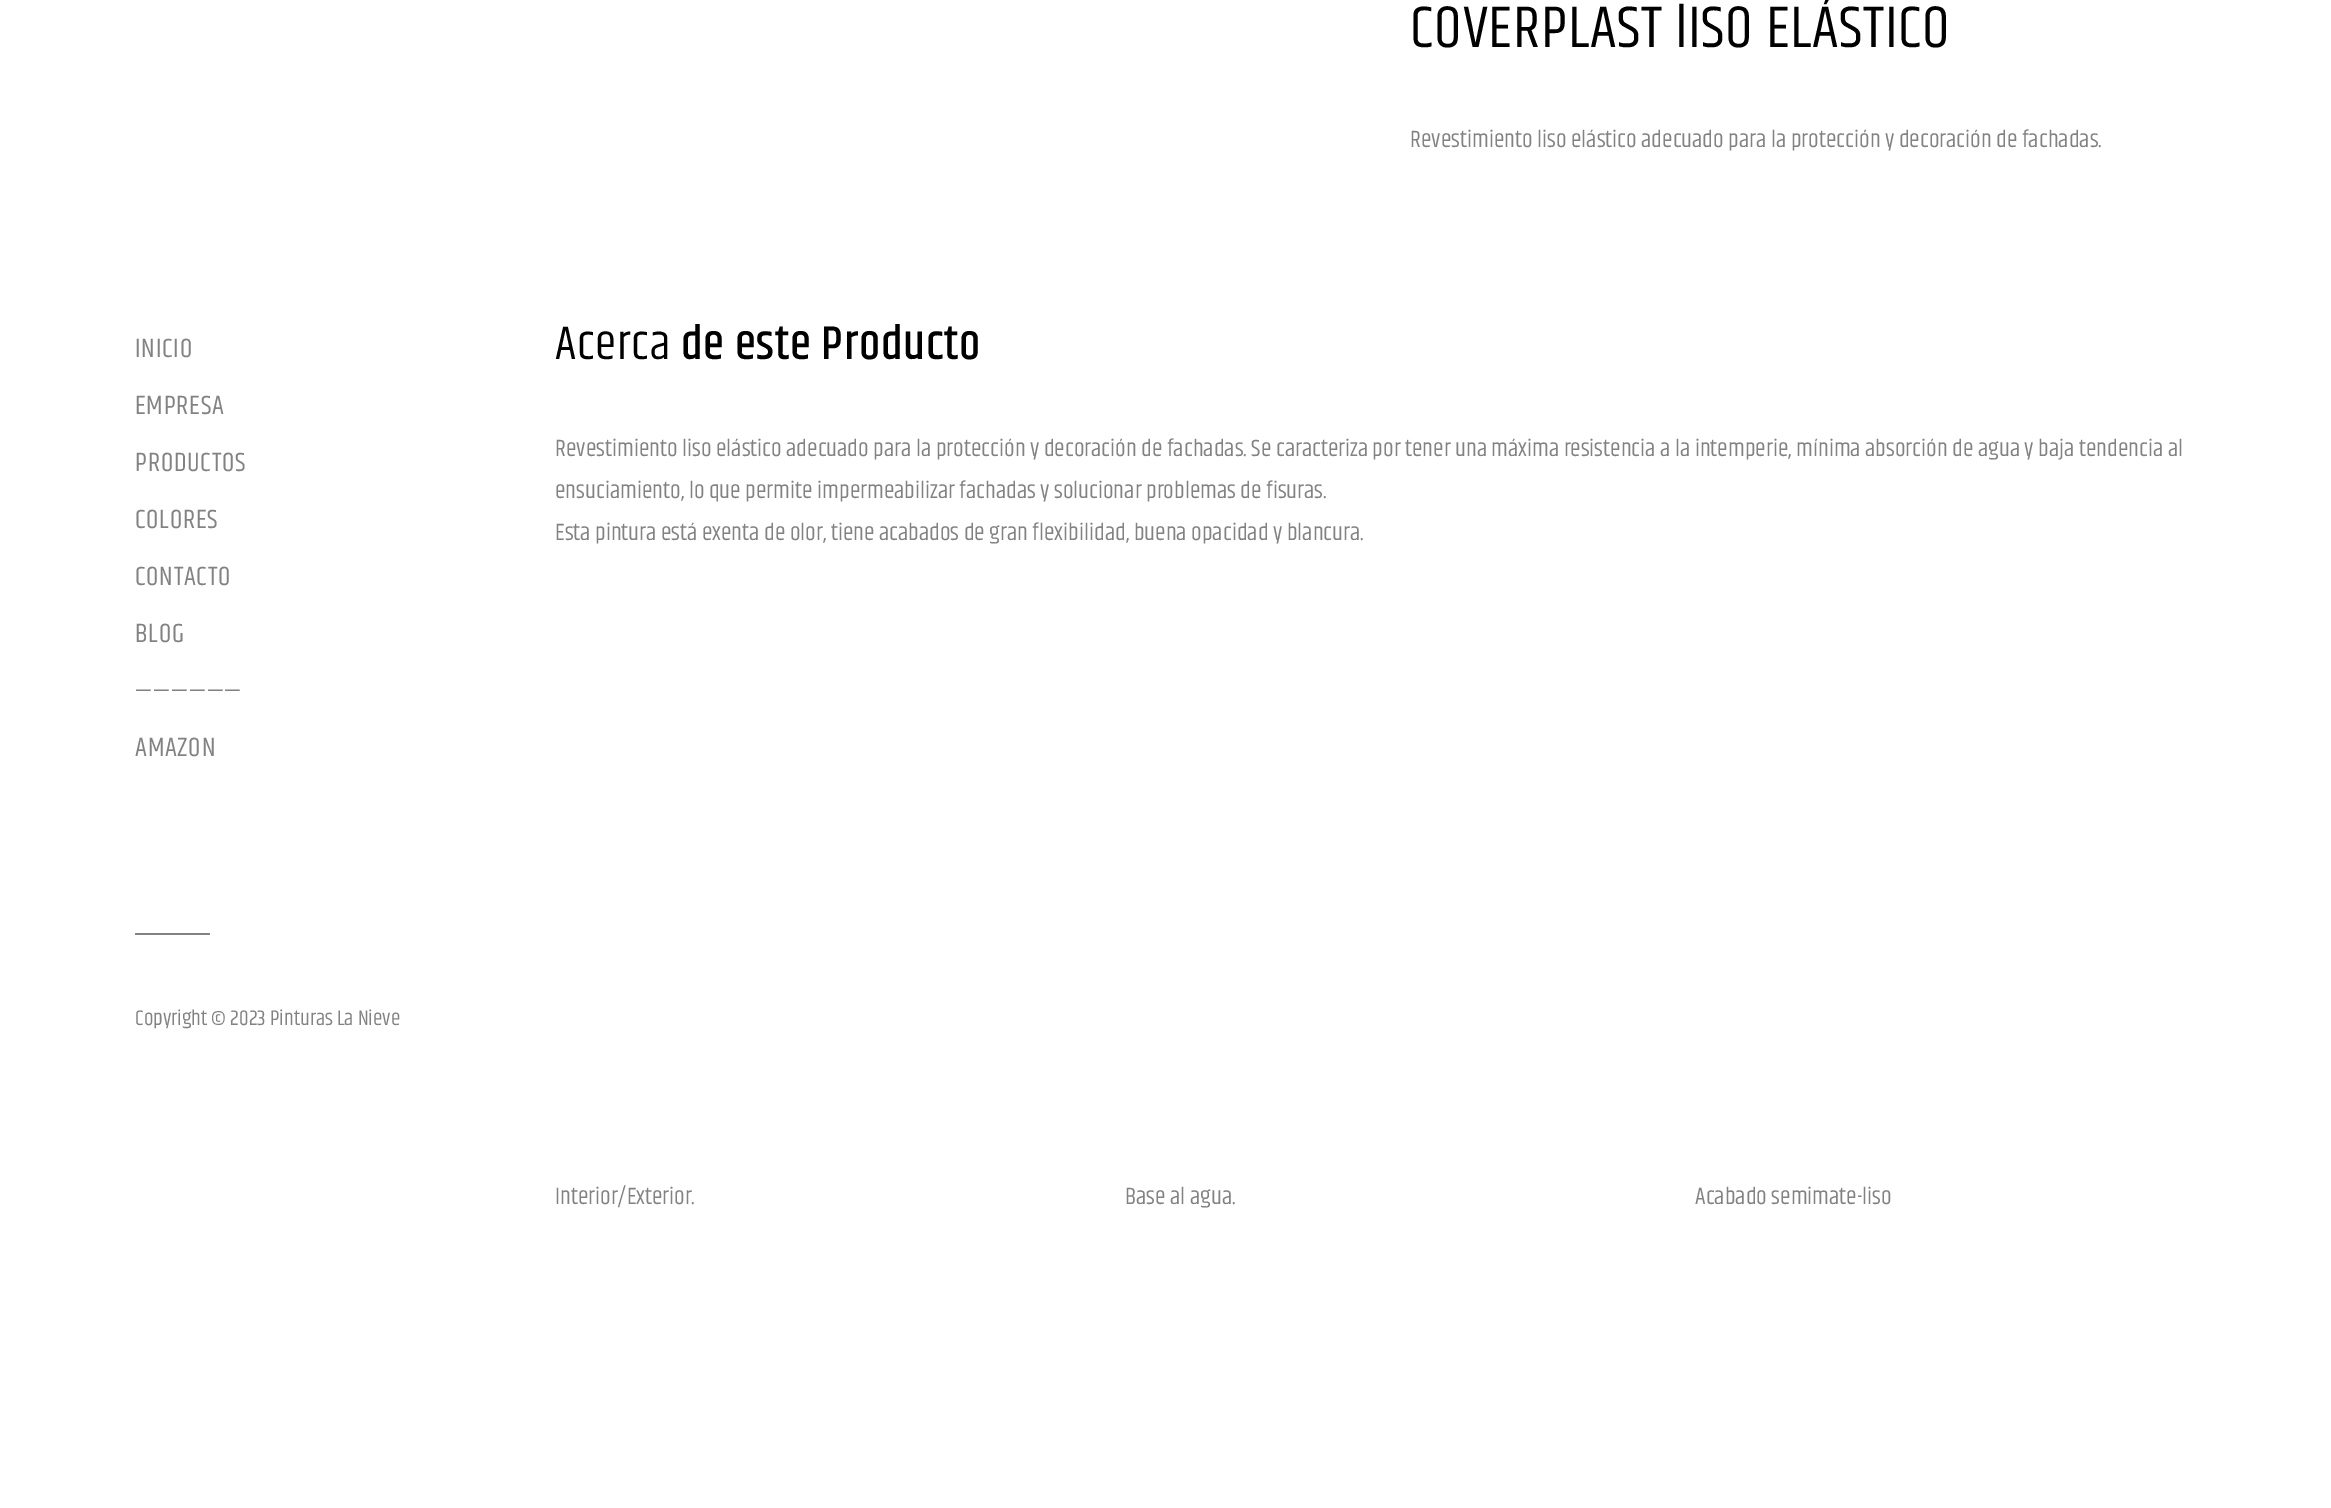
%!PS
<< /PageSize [2331 1508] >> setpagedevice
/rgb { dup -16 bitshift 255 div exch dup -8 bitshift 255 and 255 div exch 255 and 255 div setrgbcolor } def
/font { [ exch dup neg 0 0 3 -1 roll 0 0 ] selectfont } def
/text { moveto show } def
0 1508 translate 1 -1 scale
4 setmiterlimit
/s1 { /Khand-Regular 21.6 font 16#828282 rgb } def
/s2 { /Khand-Regular 24 font 16#828282 rgb } def
16#FFFFFF rgb
0 0 2331 1508 rectfill
/Khand-Regular 27 font
16#828282 rgb
135 357 moveto 0.75 0 (INICIO) ashow
135 414 moveto 0.75 0 (EMPRESA) ashow
135 471 moveto 0.75 0 (PRODUCTOS) ashow
135 528 moveto 0.75 0 (COLORES) ashow
135 585 moveto 0.75 0 (CONTACTO) ashow
135 642 moveto 0.75 0 (BLOG) ashow
135 699 moveto 0.75 0 (——————) ashow
135 756 moveto 0.75 0 (AMAZON) ashow
135 933 75 2 rectfill
s1
(Copyright © 2023 Pinturas La Nieve) 135 1025 text
/Khand-Regular 60 font
16#000000 rgb
1410 47 moveto 0.75 0 (COVERPLAST lISO ELÁSTICO) ashow
s2
(Revestimiento liso elástico adecuado para la protección y decoración de fachadas.) 1410 147 text
/Khand-Regular 48 font
16#000000 rgb
555 359 moveto 0.75 0 (Acerca) ashow
/Khand-Medium 48 font
681 359 moveto 0.75 0 (de este Producto) ashow
s2
(Revestimiento liso elástico adecuado para la protección y decoración de fachadas. Se caracteriza por tener una máxima resistencia a la intemperie, mínima absorción de agua y baja tendencia al) 555 456 text
(ensuciamiento, lo que permite impermeabilizar fachadas y solucionar problemas de fisuras.) 555 498 text
(Esta pintura está exenta de olor, tiene acabados de gran flexibilidad, buena opacidad y blancura.) 555 540 text
(Interior/Exterior.) 555 1204 text
(Base al agua.) 1125 1204 text
(Acabado semimate-liso) 1695 1204 text
showpage
